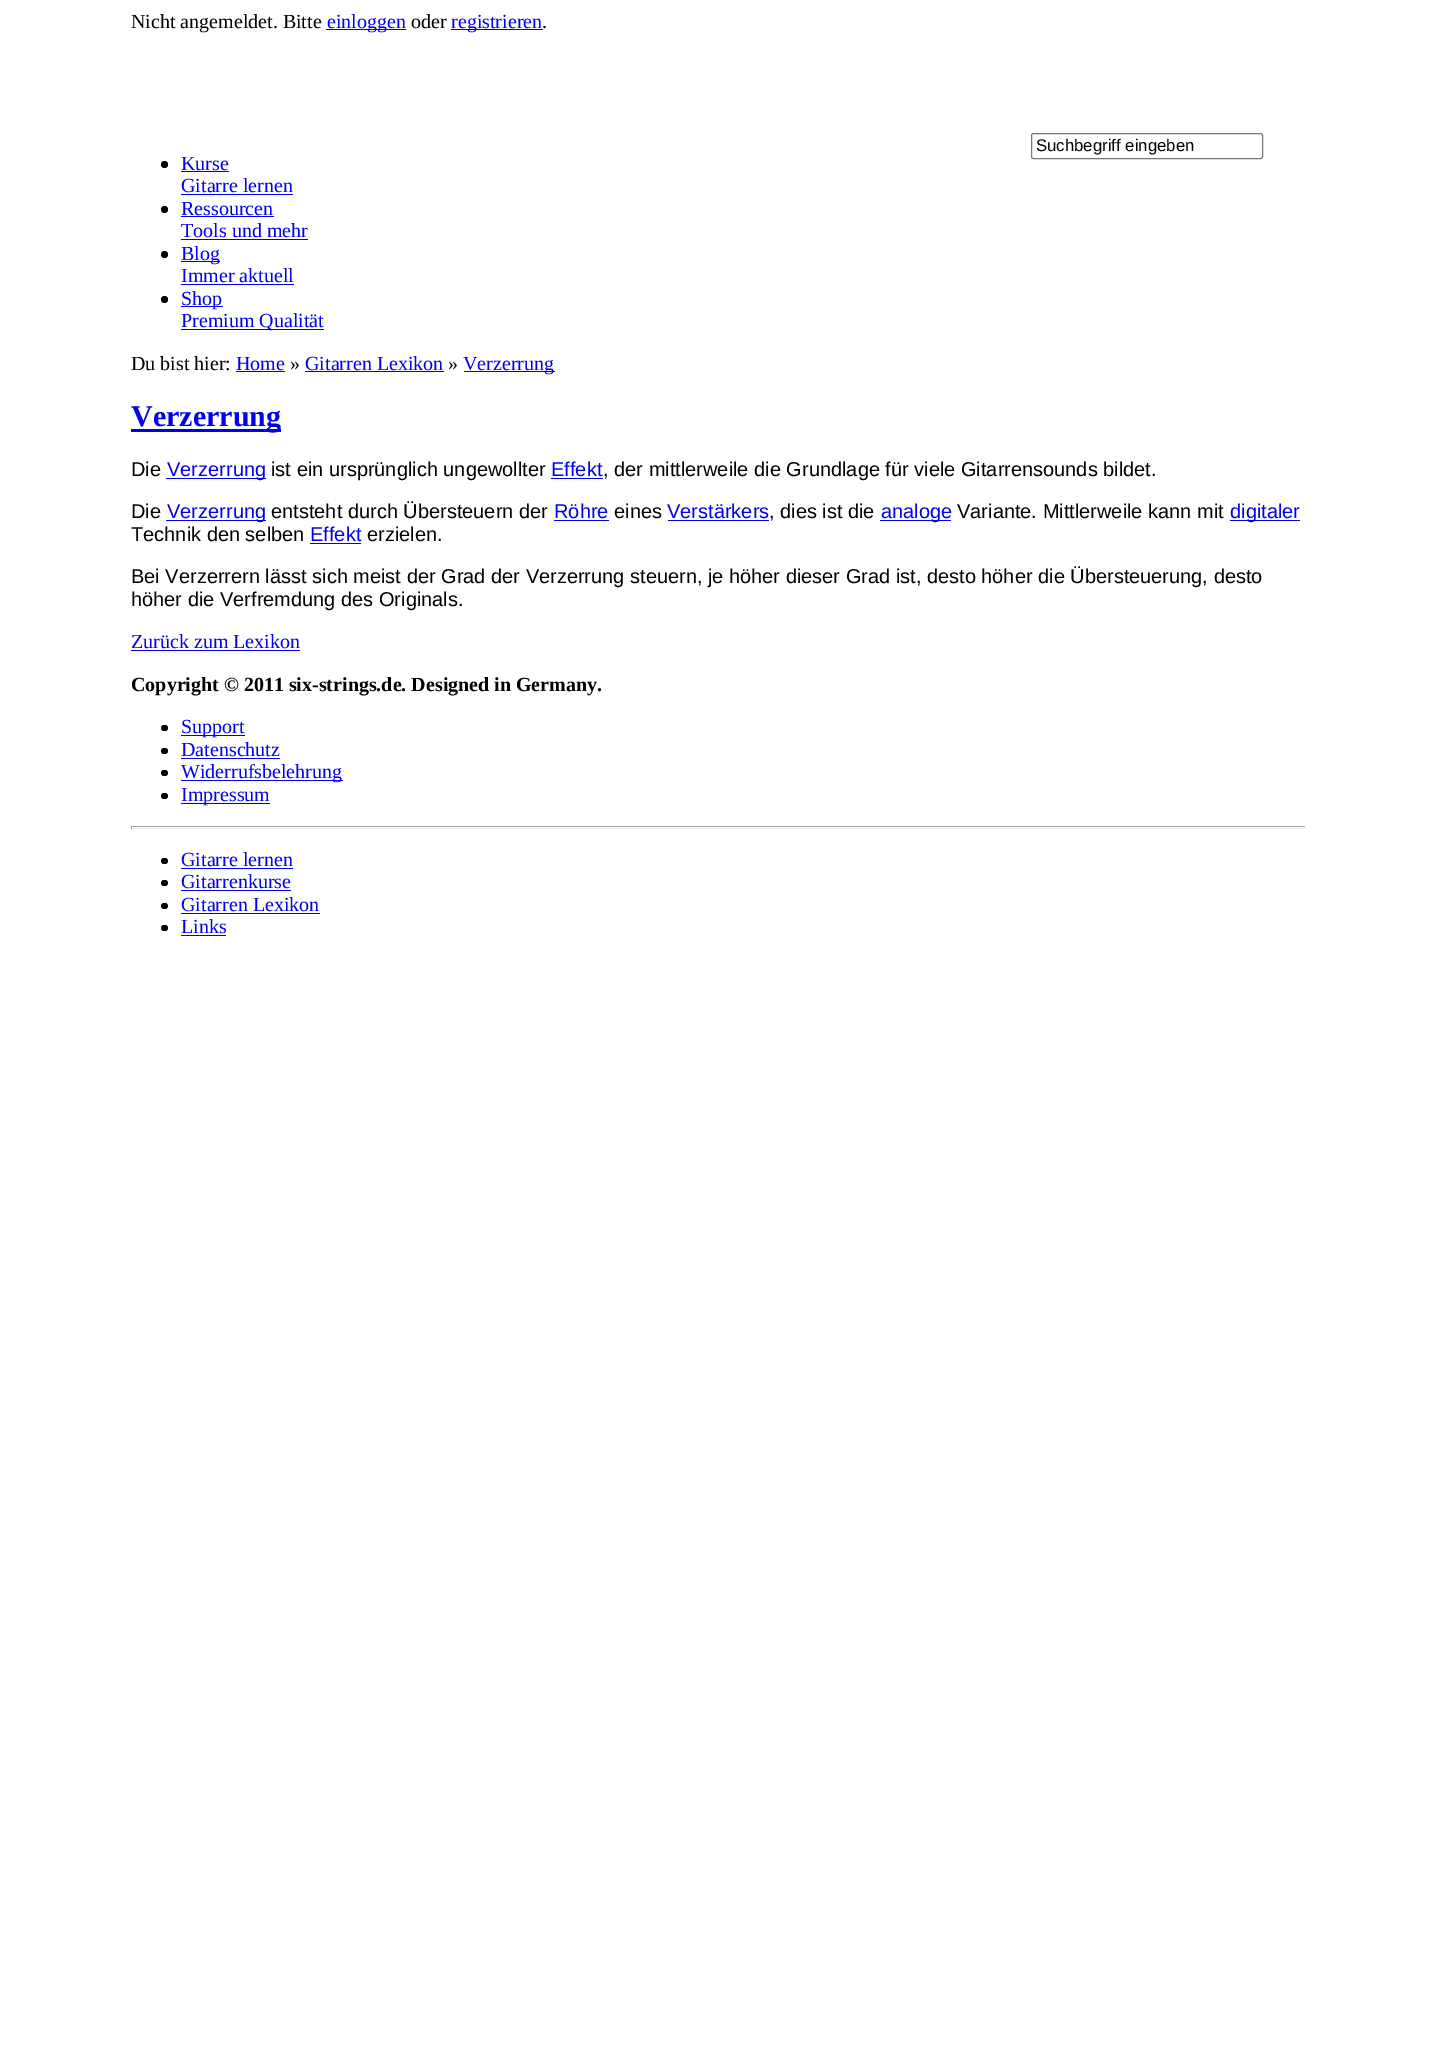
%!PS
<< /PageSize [1437 2050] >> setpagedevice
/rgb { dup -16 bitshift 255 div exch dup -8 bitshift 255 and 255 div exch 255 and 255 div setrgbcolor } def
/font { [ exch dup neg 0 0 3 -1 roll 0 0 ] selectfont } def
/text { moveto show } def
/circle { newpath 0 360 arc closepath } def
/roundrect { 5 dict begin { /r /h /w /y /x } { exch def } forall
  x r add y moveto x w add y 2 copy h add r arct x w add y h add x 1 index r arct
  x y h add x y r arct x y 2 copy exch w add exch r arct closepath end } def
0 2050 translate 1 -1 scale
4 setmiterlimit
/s1 { /LiberationSerif-Regular 20 font 16#000000 rgb } def
/s2 { /LiberationSerif-Regular 20 font 16#0000EE rgb } def
/s3 { /LiberationSans-Regular 16.75 font 16#000000 rgb } def
/s4 { /LiberationSerif-Bold 30 font 16#0000EE rgb } def
/s5 { /LiberationSans-Regular 20 font 16#000000 rgb } def
/s6 { /LiberationSans-Regular 20 font 16#0000EE rgb } def
/s7 { /LiberationSerif-Bold 20 font 16#000000 rgb } def
16#FFFFFF rgb
0 0 1437 2050 rectfill
s1
(Nicht angemeldet. Bitte) 131 28 text
16#0000EE rgb
326 29 80 1 rectfill
(einloggen) 327 28 text
s1
(oder) 411 28 text
16#0000EE rgb
451 29 92 1 rectfill
(registrieren) 451 28 text
s1
(.) 542 28 text
16#767676 rgb
1031.5 133.5 231 25 2 roundrect stroke
s3
(Suchbegriff eingeben) 1036 151 text
164.5 164.5 3.5 circle fill
s2
(Kurse) 181 170 text
181 171 48 1 rectfill
(Gitarre lernen) 181 192 text
181 194 112 1 rectfill
16#000000 rgb
164.5 209.5 3.5 circle fill
s2
(Ressourcen) 181 215 text
181 216 93 1 rectfill
(Tools und mehr) 181 237 text
181 239 127 1 rectfill
16#000000 rgb
164.5 254.5 3.5 circle fill
16#0000EE rgb
181 261 39 1 rectfill
(Blog) 181 260 text
(Immer aktuell) 181 282 text
181 284 113 1 rectfill
16#000000 rgb
164.5 299.5 3.5 circle fill
16#0000EE rgb
181 306 42 1 rectfill
(Shop) 181 305 text
181 329 143 1 rectfill
(Premium Qualität) 181 327 text
s1
(Du bist hier:) 131 370 text
s2
(Home) 236 370 text
236 371 49 1 rectfill
s1
(») 290 370 text
s2
(Gitarren Lexikon) 305 370 text
305 371 139 1 rectfill
s1
(») 448 370 text
16#0000EE rgb
464 371 91 1 rectfill
(Verzerrung) 463 370 text
131 429 150 3 rectfill
s4
(Verzerrung) 131 426 text
s5
(Die) 131 476 text
16#0000EE rgb
166 478 100 1 rectfill
(Verzerrung) 167 476 text
s5
(ist ein ursprünglich ungewollter) 271 476 text
s6
(Effekt) 551 476 text
s5
(, der mittlerweile die Grundlage für viele Gitarrensounds bildet.) 603 476 text
16#0000EE rgb
551 478 52 1 rectfill
s5
(Die) 131 518 text
16#0000EE rgb
166 520 100 1 rectfill
(Verzerrung) 167 518 text
s5
(entsteht durch Übersteuern der) 271 518 text
s6
(Röhre) 554 518 text
554 520 55 1 rectfill
s5
(eines) 614 518 text
s6
(Verstärkers) 667 518 text
668 520 101 1 rectfill
s5
(, dies ist die) 769 518 text
16#0000EE rgb
880 520 71 1 rectfill
(analoge) 881 518 text
s5
(Variante. Mittlerweile kann mit) 957 518 text
16#0000EE rgb
1230 520 70 1 rectfill
(digitaler) 1230 518 text
s5
(Technik den selben) 131 541 text
s6
(Effekt) 310 541 text
310 543 51 1 rectfill
s5
(erzielen.) 367 541 text
(Bei Verzerrern lässt sich meist der Grad der Verzerrung steuern, je höher dieser Grad ist, desto höher die Übersteuerung, desto) 131 583 text
(höher die Verfremdung des Originals.) 131 606 text
s2
(Zurück zum Lexikon) 131 648 text
131 650 169 1 rectfill
s7
(Copyright © 2011 six-strings.de. Designed in Germany.) 131 691 text
161 725 7 6 3 roundrect fill
16#0000EE rgb
181 735 64 1 rectfill
s2
(Support) 181 733 text
16#000000 rgb
161 748 7 6 3 roundrect fill
s2
(Datenschutz) 181 756 text
181 758 99 1 rectfill
16#000000 rgb
161 770 7 6 3 roundrect fill
16#0000EE rgb
181 780 162 1 rectfill
(Widerrufsbelehrung) 181 778 text
16#000000 rgb
161 793 7 6 3 roundrect fill
16#0000EE rgb
181 803 89 1 rectfill
(Impressum) 181 801 text
16#9F9F9F rgb
131 826 1175 1 rectfill
16#EEEEEE rgb
1305 826 1 3 rectfill
131 828 1175 1 rectfill
16#9F9F9F rgb
131 826 1 3 rectfill
16#000000 rgb
161 858 7 6 3 roundrect fill
s2
(Gitarre lernen) 181 866 text
181 868 112 1 rectfill
16#000000 rgb
161 880 7 6 3 roundrect fill
s2
(Gitarrenkurse) 181 888 text
181 890 110 1 rectfill
16#000000 rgb
161 903 7 6 3 roundrect fill
s2
(Gitarren Lexikon) 181 911 text
181 913 139 1 rectfill
16#000000 rgb
161 925 7 6 3 roundrect fill
s2
(Links) 181 933 text
181 935 45 1 rectfill
showpage
